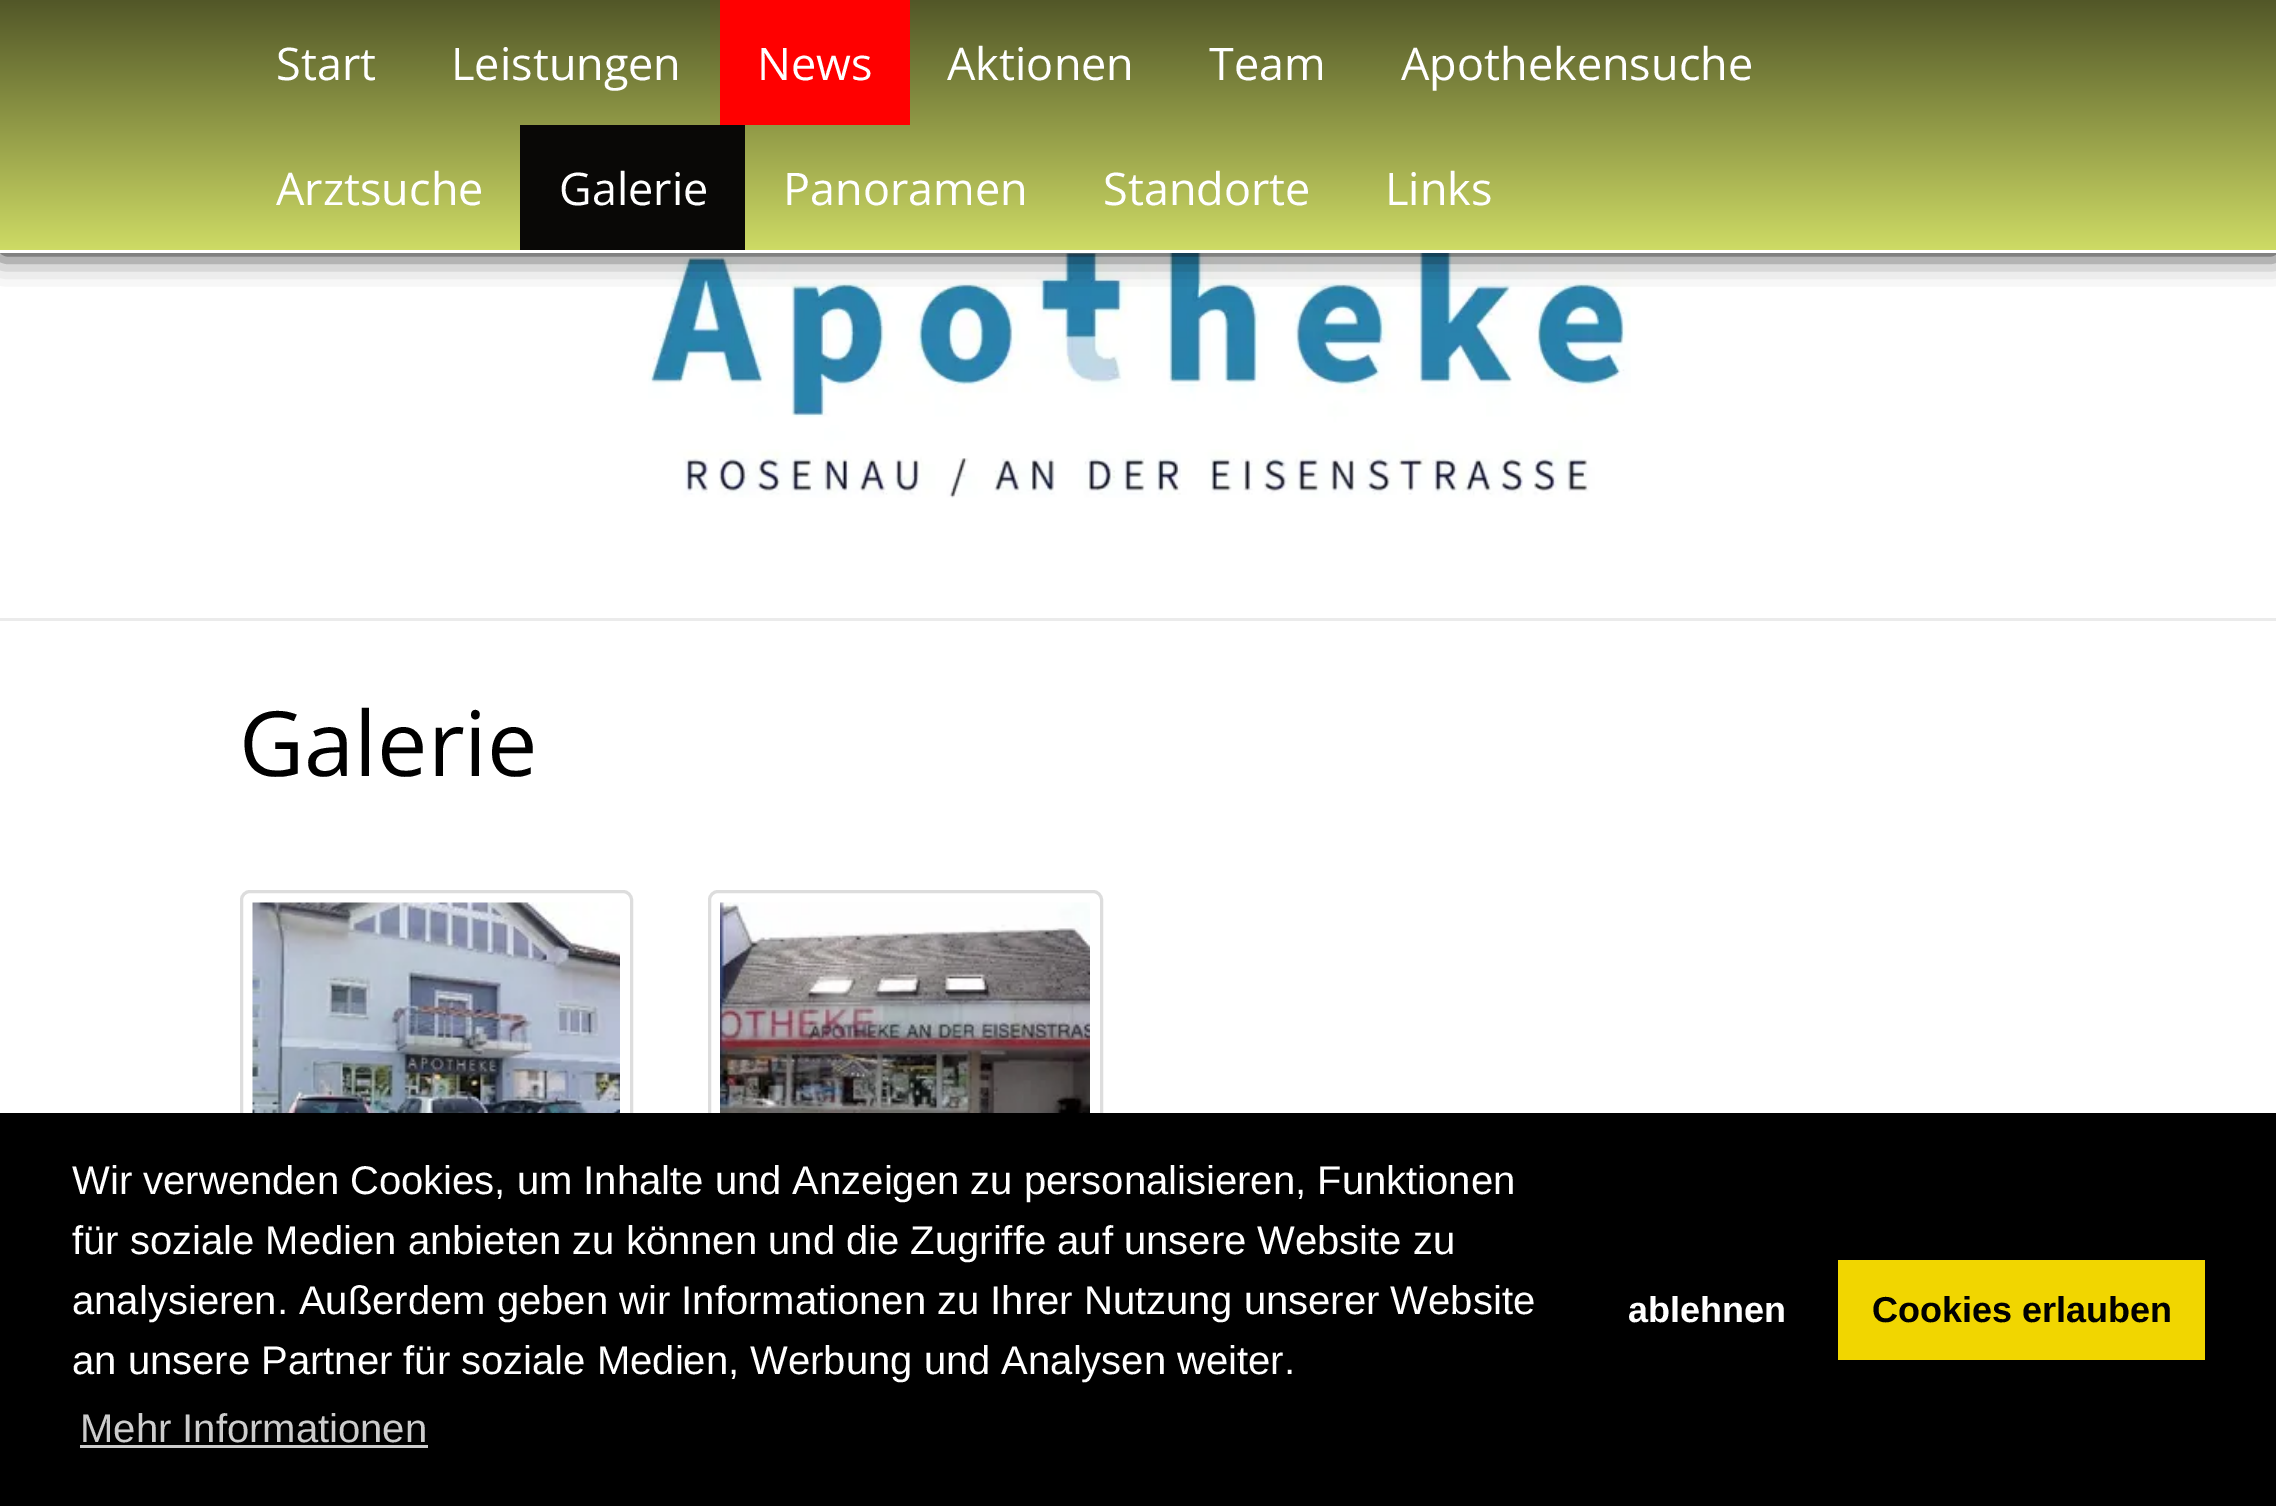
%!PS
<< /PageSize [2276 1506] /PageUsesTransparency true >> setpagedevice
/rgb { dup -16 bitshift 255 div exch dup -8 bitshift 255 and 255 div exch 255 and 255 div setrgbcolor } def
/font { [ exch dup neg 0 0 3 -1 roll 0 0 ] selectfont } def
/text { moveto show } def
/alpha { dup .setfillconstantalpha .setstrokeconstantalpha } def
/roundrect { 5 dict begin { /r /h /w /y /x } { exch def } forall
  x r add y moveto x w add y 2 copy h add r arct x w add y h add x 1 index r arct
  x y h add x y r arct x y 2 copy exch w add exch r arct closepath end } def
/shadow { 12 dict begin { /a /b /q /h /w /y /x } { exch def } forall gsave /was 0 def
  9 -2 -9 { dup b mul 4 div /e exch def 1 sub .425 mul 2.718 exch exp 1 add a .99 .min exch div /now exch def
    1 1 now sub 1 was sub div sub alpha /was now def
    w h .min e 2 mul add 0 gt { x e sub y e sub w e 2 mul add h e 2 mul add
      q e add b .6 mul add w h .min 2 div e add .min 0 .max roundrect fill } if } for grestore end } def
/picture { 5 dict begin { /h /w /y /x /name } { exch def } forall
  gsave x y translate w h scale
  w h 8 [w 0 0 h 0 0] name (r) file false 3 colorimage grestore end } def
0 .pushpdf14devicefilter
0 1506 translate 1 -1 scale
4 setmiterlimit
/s1 { /OpenSans-Regular 45 font 16#FFFFFF rgb } def
/s2 { /OpenSans-Regular 90 font 16#000000 rgb } def
/s3 { /LiberationSans-Regular 40 font 16#FFFFFF rgb } def
/s4 { /LiberationSans-Regular 40 font 16#CCCCCC rgb } def
/s5 { /LiberationSans-Bold 36 font 16#FFFFFF rgb } def
/s6 { /LiberationSans-Bold 36 font 16#000000 rgb } def
16#FFFFFF rgb
0 0 2276 1506 rectfill
(pic1.raw) 648 253 983 245 picture
16#000000 rgb
0 0 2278 253 0 15 1 shadow
gsave 0 0 moveto 2276 0 lineto 2276 250 lineto 0 250 lineto closepath clip newpath
<< /ShadingType 2 /ColorSpace /DeviceRGB /Coords [1139 0 1139 250] /Extend [true true] /Function << /FunctionType 2 /Domain [0 1] /C0 [0.322 0.341 0.157] /C1 [0.808 0.859 0.396] /N 1 >> >> shfill grestore
16#FFFFFF rgb
0 250 2276 3 rectfill
s1
(Start) 276 80 text
(Leistungen) 451 80 text
16#FF0000 rgb
720 0 190 125 rectfill
s1
(News) 757 80 text
(Aktionen) 947 80 text
(Team) 1209 80 text
(Apothekensuche) 1401 80 text
(Arztsuche) 276 205 text
16#090806 rgb
520 125 225 125 rectfill
s1
(Galerie) 559 205 text
(Panoramen) 783 205 text
(Standorte) 1103 205 text
(Links) 1385 205 text
16#EBEBEB rgb
0 618 2276 3 rectfill
s2
(Galerie) 239 776 text
16#DDDDDD rgb
3 setlinewidth
241.5 891.5 390 515 8.5 roundrect stroke
(pic2.raw) 252 902 368 211 picture
709.5 891.5 392 515 8.5 roundrect stroke
(pic3.raw) 720 902 370 211 picture
16#000000 rgb
0 1113 2276 393 rectfill
s3
(Wir verwenden Cookies, um Inhalte und Anzeigen zu personalisieren, Funktionen) 72 1194 text
(für soziale Medien anbieten zu können und die Zugriffe auf unsere Website zu) 72 1254 text
(analysieren. Außerdem geben wir Informationen zu Ihrer Nutzung unserer Website) 72 1314 text
(an unsere Partner für soziale Medien, Werbung und Analysen weiter.) 72 1374 text
s4
(Mehr Informationen) 80 1442 text
80 1445 348 3 rectfill
s5
(ablehnen) 1628 1322 text
16#F1D600 rgb
1838 1260 367 100 rectfill
s6
(Cookies erlauben) 1872 1322 text
.poppdf14devicefilter showpage
